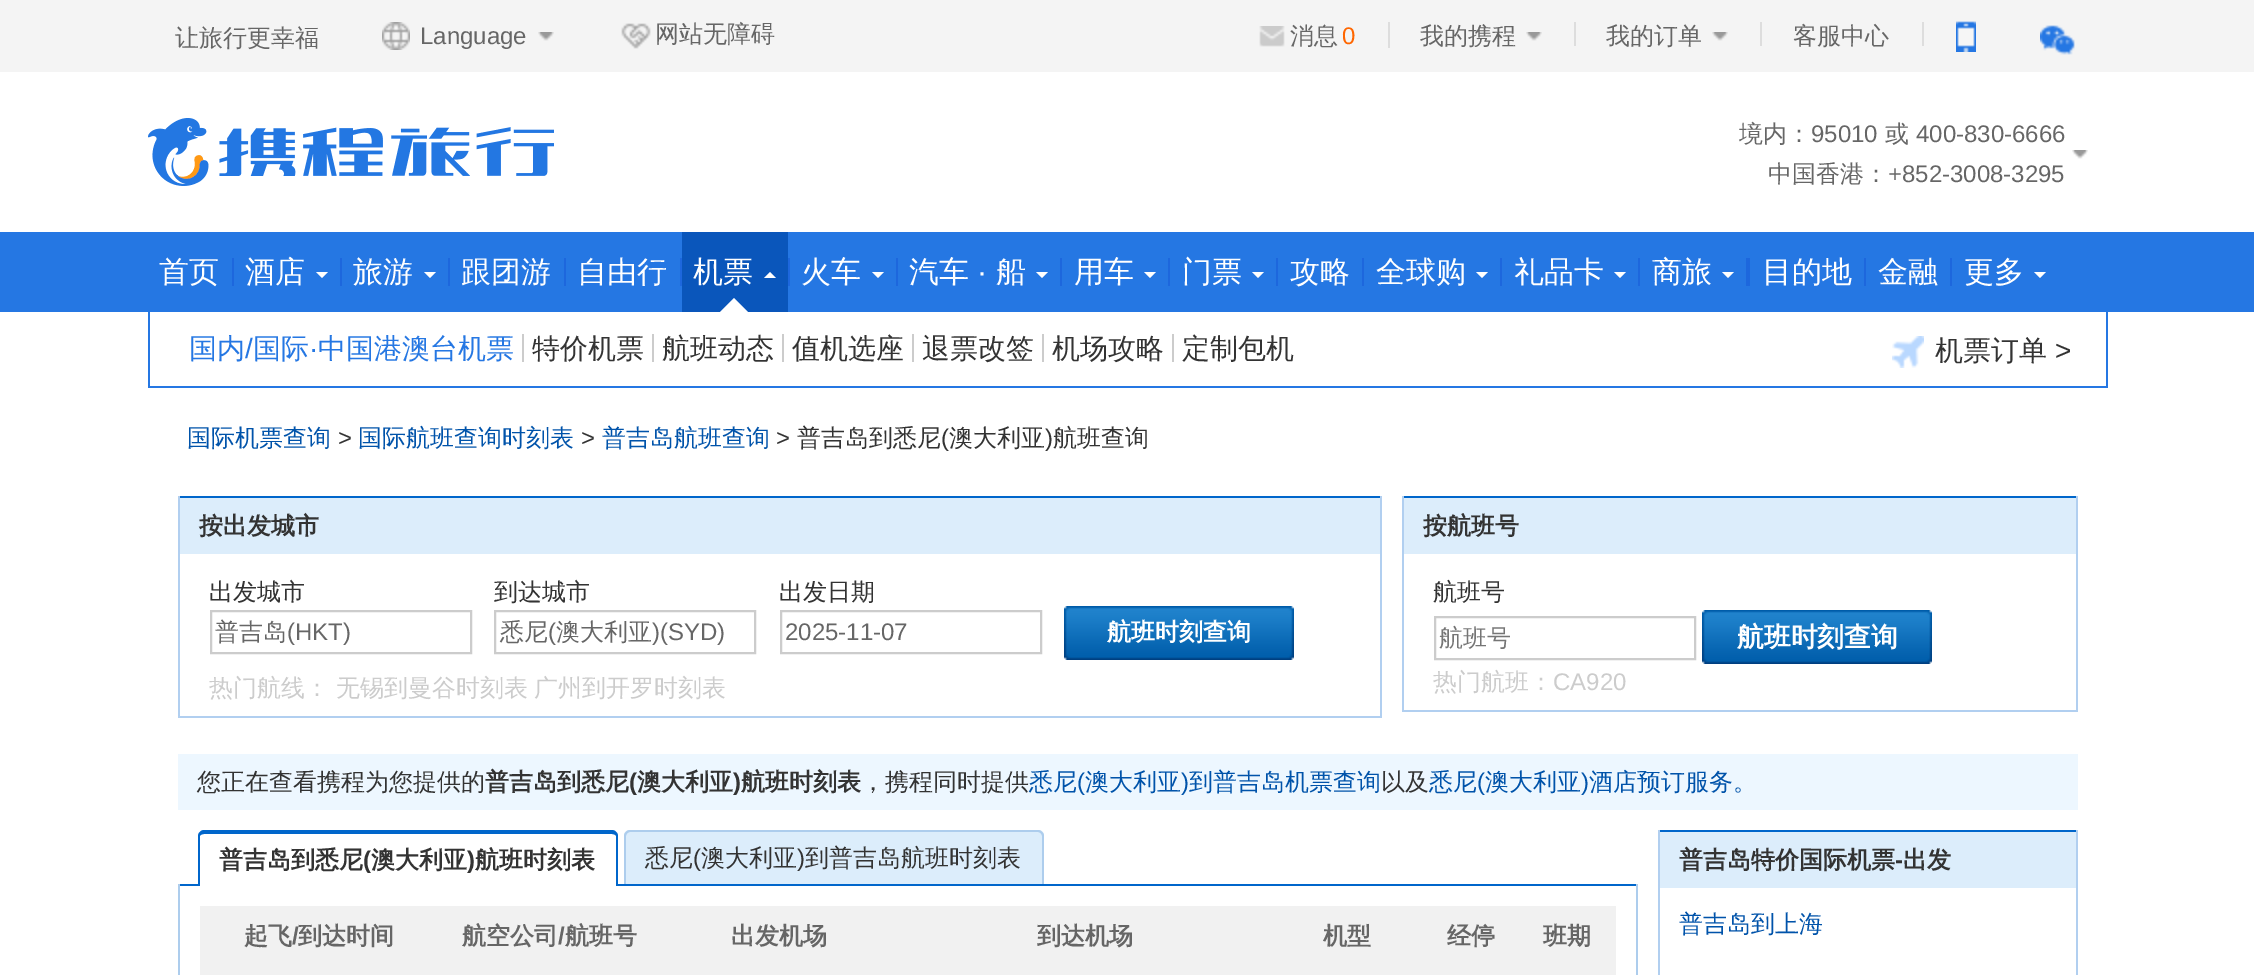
%!PS
<< /PageSize [2254 975] >> setpagedevice
/rgb { dup -16 bitshift 255 div exch dup -8 bitshift 255 and 255 div exch 255 and 255 div setrgbcolor } def
/font { [ exch dup neg 0 0 3 -1 roll 0 0 ] selectfont } def
/text { moveto show } def
/picture { 5 dict begin { /h /w /y /x /name } { exch def } forall
  gsave x y translate w h scale
  w h 8 [w 0 0 h 0 0] name (r) file false 3 colorimage grestore end } def
0 975 translate 1 -1 scale
4 setmiterlimit
/s1 { /WenQuanYiZenHei-Medium 24 font 16#666666 rgb } def
/s2 { /LiberationSans-Regular 24 font 16#666666 rgb } def
/s3 { /LiberationSans-Regular 24 font 16#FF6600 rgb } def
/s4 { /WenQuanYiZenHei-Medium 30 font 16#FFFFFF rgb } def
/s5 { /LiberationSans-Regular 30 font 16#FFFFFF rgb } def
/s6 { /WenQuanYiZenHei-Medium 28 font 16#2577E3 rgb } def
/s7 { /LiberationSans-Regular 28 font 16#2577E3 rgb } def
/s8 { /WenQuanYiZenHei-Medium 28 font 16#333333 rgb } def
/s9 { /LiberationSans-Regular 28 font 16#333333 rgb } def
/s10 { /WenQuanYiZenHei-Medium 24 font 16#0053AA rgb } def
/s11 { /LiberationSans-Regular 24 font 16#333333 rgb } def
/s12 { /WenQuanYiZenHei-Medium 24 font 16#333333 rgb } def
/s13 { /WenQuanYiZenHei-Bold 24 font 16#333333 rgb } def
/s14 { /WenQuanYiZenHei-Bold 24 font 16#FFFFFF rgb } def
/s15 { /WenQuanYiZenHei-Medium 24 font 16#CCCCCC rgb } def
/s16 { /WenQuanYiZenHei-Medium 24 font 16#757575 rgb } def
/s17 { /WenQuanYiZenHei-Bold 26.75 font 16#FFFFFF rgb } def
/s18 { /LiberationSans-Regular 24 font 16#CCCCCC rgb } def
/s19 { /LiberationSans-Bold 24 font 16#333333 rgb } def
/s20 { /LiberationSans-Regular 24 font 16#0053AA rgb } def
/s21 { /WenQuanYiZenHei-Bold 24 font 16#666666 rgb } def
/s22 { /LiberationSans-Bold 24 font 16#666666 rgb } def
16#FFFFFF rgb
0 0 2254 975 rectfill
16#F4F4F4 rgb
0 0 2254 72 rectfill
s1
(让旅行更幸福) 175 46 text
(pic1.raw) 382 22 28 28 picture
s2
(Language) 420 44 text
(pic2.raw) 538 32 16 9 picture
(pic3.raw) 621 23 30 26 picture
s1
(网站无障碍) 655 42 text
16#DDDDDD rgb
1388 22 2 26 rectfill
(pic4.raw) 1259 26 26 21 picture
s1
(消息) 1290 44 text
s3
(0) 1342 44 text
16#DDDDDD rgb
1574 22 2 24 rectfill
s1
(我的携程) 1420 44 text
(pic2.raw) 1526 32 16 9 picture
16#DDDDDD rgb
1760 22 2 24 rectfill
s1
(我的订单) 1606 44 text
(pic2.raw) 1712 32 16 9 picture
16#DDDDDD rgb
1922 22 2 24 rectfill
s1
(客服中心) 1793 44 text
(pic5.raw) 1956 21 20 31 picture
(pic6.raw) 2040 25 35 30 picture
(pic7.raw) 148 118 406 68 picture
(境内：) 1739 142 text
s2
(95010) 1811 142 text
s1
(或) 1885 142 text
s2
(400-830-6666) 1916 142 text
s1
(中国香港：) 1768 182 text
s2
(+852-3008-3295) 1888 182 text
(pic8.raw) 2072 150 16 9 picture
16#2577E3 rgb
0 232 2254 80 rectfill
s4
(首页) 159 282 text
(酒店) 245 282 text
316 272 moveto 328 272 lineto 322 278 lineto closepath fill
(火车) 801 282 text
872 272 moveto 884 272 lineto 878 278 lineto closepath fill
(汽车) 909 282 text
s5
(·) 977 282 text
s4
(船) 996 282 text
1036 272 moveto 1048 272 lineto 1042 278 lineto closepath fill
(用车) 1074 282 text
1144 272 moveto 1156 272 lineto 1150 278 lineto closepath fill
(门票) 1182 282 text
1252 272 moveto 1264 272 lineto 1258 278 lineto closepath fill
(礼品卡) 1514 282 text
1614 272 moveto 1626 272 lineto 1620 278 lineto closepath fill
(商旅) 1652 282 text
1722 272 moveto 1734 272 lineto 1728 278 lineto closepath fill
16#0A56BB rgb
682 232 106 80 rectfill
s4
(机票) 693 282 text
776 278 moveto 764 278 lineto 770 272 lineto closepath 748 312 moveto 720 312 lineto 734 298 lineto closepath fill
16#2577E3 rgb
2106 312 2 76 rectfill
148 386 1960 2 rectfill
148 312 2 76 rectfill
s6
(国内) 189 358 text
s7
(/) 245 358 text
s6
(国际) 253 358 text
s7
(·) 309 358 text
s6
(中国港澳台机票) 318 358 text
16#CCCCCC rgb
522 334 2 28 rectfill
s8
(特价机票) 532 358 text
16#CCCCCC rgb
652 334 2 28 rectfill
s8
(航班动态) 662 358 text
16#CCCCCC rgb
782 334 2 28 rectfill
s8
(值机选座) 792 358 text
16#CCCCCC rgb
912 334 2 28 rectfill
s8
(退票改签) 922 358 text
16#CCCCCC rgb
1042 334 2 28 rectfill
s8
(机场攻略) 1052 358 text
16#CCCCCC rgb
1172 334 2 28 rectfill
s8
(定制包机) 1182 358 text
(pic9.raw) 1892 336 32 32 picture
(机票订单) 1935 360 text
s9
(>) 2055 360 text
16#1D67DD rgb
232 258 2 28 rectfill
340 258 2 28 rectfill
s4
(旅游) 353 282 text
424 272 moveto 436 272 lineto 430 278 lineto closepath fill
16#1D67DD rgb
448 258 2 28 rectfill
s4
(跟团游) 461 282 text
16#1D67DD rgb
564 258 2 28 rectfill
s4
(自由行) 577 282 text
16#1D67DD rgb
680 258 2 28 rectfill
788 258 2 28 rectfill
896 258 2 28 rectfill
1060 258 2 28 rectfill
1168 258 2 28 rectfill
1276 258 2 28 rectfill
s4
(攻略) 1290 282 text
16#1D67DD rgb
1362 258 2 28 rectfill
s4
(全球购) 1376 282 text
1476 272 moveto 1488 272 lineto 1482 278 lineto closepath fill
16#1D67DD rgb
1500 258 2 28 rectfill
1638 258 2 28 rectfill
1746 258 4 28 rectfill
s4
(目的地) 1762 282 text
16#1D67DD rgb
1864 258 2 28 rectfill
s4
(金融) 1878 282 text
16#1D67DD rgb
1950 258 2 28 rectfill
s4
(更多) 1964 282 text
2034 272 moveto 2046 272 lineto 2040 278 lineto closepath fill
s10
(国际机票查询) 187 446 text
s11
(>) 338 446 text
s10
(国际航班查询时刻表) 358 446 text
s11
(>) 581 446 text
s10
(普吉岛航班查询) 602 446 text
s11
(>) 776 446 text
s12
(普吉岛到悉尼) 797 446 text
s11
(\() 941 446 text
s12
(澳大利亚) 949 446 text
s11
(\)) 1045 446 text
s12
(航班查询) 1053 446 text
16#0066CB rgb
178 496 1204 2 rectfill
16#B1CFF0 rgb
1380 496 2 222 rectfill
178 716 1204 2 rectfill
178 496 2 222 rectfill
16#DCEDFB rgb
180 498 1200 56 rectfill
s13
(按出发城市) 199 534 text
s12
(出发城市) 209 600 text
16#CCCCCC rgb
2 setlinewidth
211 611 260 42 rectstroke
s1
(普吉岛) 215 640 text
s2
(\(HKT\)) 287 640 text
s12
(到达城市) 494 600 text
16#CCCCCC rgb
495 611 260 42 rectstroke
s1
(悉尼) 500 640 text
s2
(\() 548 640 text
s1
(澳大利亚) 556 640 text
s2
(\)\(SYD\)) 652 640 text
s12
(出发日期) 779 600 text
16#CCCCCC rgb
781 611 260 42 rectstroke
s2
(2025-11-07) 785 640 text
(pic10.raw) 1064 606 230 54 picture
s14
(航班时刻查询) 1107 640 text
s15
(热门航线：) 209 696 text
(无锡到曼谷时刻表) 336 696 text
(广州到开罗时刻表) 534 696 text
16#0066CB rgb
1402 496 676 2 rectfill
16#B1CFF0 rgb
2076 496 2 216 rectfill
1402 710 676 2 rectfill
1402 496 2 216 rectfill
16#DCEDFB rgb
1404 498 672 56 rectfill
s13
(按航班号) 1423 534 text
s12
(航班号) 1433 600 text
16#CCCCCC rgb
1435 617 260 42 rectstroke
s16
(航班号) 1439 646 text
(pic10.raw) 1702 610 230 54 picture
s17
(航班时刻查询) 1737 646 text
s15
(热门航班：) 1433 690 text
s18
(CA920) 1553 690 text
16#EDF7FF rgb
178 754 1900 56 rectfill
s12
(您正在查看携程为您提供的) 197 790 text
s13
(普吉岛到悉尼) 485 790 text
s19
(\() 629 790 text
s13
(澳大利亚) 637 790 text
s19
(\)) 733 790 text
s13
(航班时刻表) 741 790 text
s12
(，携程同时提供) 861 790 text
s10
(悉尼) 1029 790 text
s20
(\() 1077 790 text
s10
(澳大利亚) 1085 790 text
s20
(\)) 1181 790 text
s10
(到普吉岛机票查询) 1189 790 text
s12
(以及) 1381 790 text
s10
(悉尼) 1429 790 text
s20
(\() 1477 790 text
s10
(澳大利亚) 1485 790 text
s20
(\)) 1581 790 text
s10
(酒店预订服务。) 1589 790 text
16#0066CB rgb
178 884 1460 2 rectfill
16#FFFFFF rgb
204 830 moveto 612 830 lineto 615.5 830 618 832.5 618 836 curveto 618 886 lineto 198 886 lineto 198 836 lineto 198 832.5 200.5 830 204 830 curveto closepath fill
16#0066CB rgb
204 830 moveto 612 830 lineto 615 830 618 833 618 836 curveto 618 886 lineto 198 886 lineto 198 836 lineto 198 833 201 830 204 830 curveto closepath 204 834 moveto 612 834 lineto 614 834 616 835 616 836 curveto 616 886 lineto 200 886 lineto 200 836 lineto 200 835 202 834 204 834 curveto closepath eofill
s13
(普吉岛到悉尼) 219 868 text
s19
(\() 363 868 text
s13
(澳大利亚) 371 868 text
s19
(\)) 467 868 text
s13
(航班时刻表) 475 868 text
16#DCEDFB rgb
630 830 moveto 1038 830 lineto 1041.5 830 1044 832.5 1044 836 curveto 1044 884 lineto 624 884 lineto 624 836 lineto 624 832.5 626.5 830 630 830 curveto closepath fill
16#ADCDED rgb
630 830 moveto 1038 830 lineto 1041 830 1044 833 1044 836 curveto 1044 884 lineto 624 884 lineto 624 836 lineto 624 833 627 830 630 830 curveto closepath 630 832 moveto 1038 832 lineto 1040 832 1042 834 1042 836 curveto 1042 884 lineto 626 884 lineto 626 836 lineto 626 834 628 832 630 832 curveto closepath eofill
s12
(悉尼) 645 866 text
s11
(\() 693 866 text
s12
(澳大利亚) 701 866 text
s11
(\)) 797 866 text
s12
(到普吉岛航班时刻表) 805 866 text
16#ADCDED rgb
1636 884 2 91 rectfill
178 884 2 91 rectfill
16#F1F1F1 rgb
200 906 1416 60 rectfill
s21
(起飞) 244 944 text
s22
(/) 292 944 text
s21
(到达时间) 298 944 text
(航空公司) 462 944 text
s22
(/) 558 944 text
s21
(航班号) 565 944 text
(出发机场) 731 944 text
(到达机场) 1037 944 text
(机型) 1323 944 text
(经停) 1447 944 text
(班期) 1543 944 text
16#F1F1F1 rgb
200 966 1416 9 rectfill
16#0066CB rgb
1658 830 420 2 rectfill
16#B1CFF0 rgb
2076 830 2 145 rectfill
1658 830 2 145 rectfill
16#DCEDFB rgb
1660 832 416 56 rectfill
s13
(普吉岛特价国际机票) 1679 868 text
s19
(-) 1895 868 text
s13
(出发) 1903 868 text
s10
(普吉岛到上海) 1679 932 text
showpage
